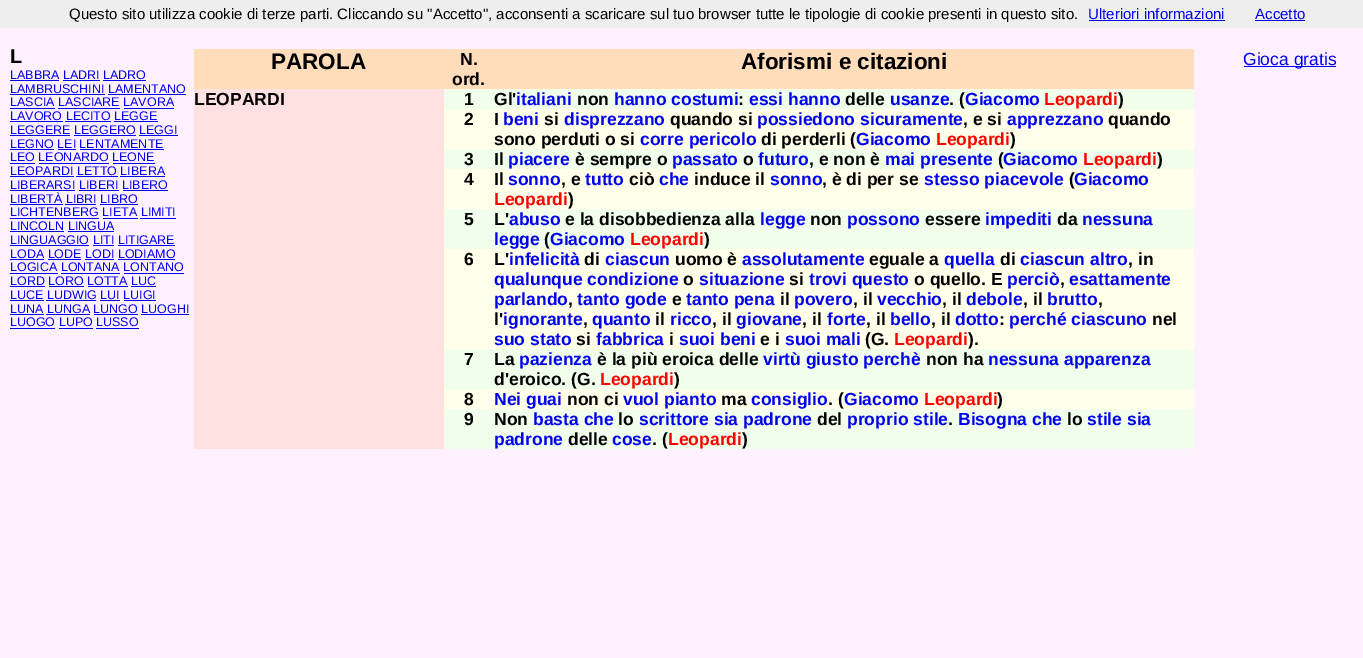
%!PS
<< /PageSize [1363 658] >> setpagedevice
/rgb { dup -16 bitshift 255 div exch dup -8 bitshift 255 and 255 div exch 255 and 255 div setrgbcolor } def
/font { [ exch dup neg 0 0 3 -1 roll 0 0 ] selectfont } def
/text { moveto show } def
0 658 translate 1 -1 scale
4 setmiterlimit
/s1 { /LiberationSans-Regular 15 font 16#000000 rgb } def
/s2 { /LiberationSans-Regular 15 font 16#0000EE rgb } def
/s3 { /LiberationSans-Bold 20 font 16#000000 rgb } def
/s4 { /LiberationSans-Regular 12.5 font 16#0000EE rgb } def
/s5 { /LiberationSans-Bold 22.5 font 16#000000 rgb } def
/s6 { /LiberationSans-Bold 17.5 font 16#000000 rgb } def
/s7 { /LiberationSans-Bold 17.5 font 16#0000EE rgb } def
/s8 { /LiberationSans-Bold 17.5 font 16#FF0000 rgb } def
/s9 { /LiberationSans-Regular 17.5 font 16#0000EE rgb } def
16#FFF0FF rgb
0 0 1363 658 rectfill
16#EEEEEE rgb
0 0 1363 28 rectfill
s1
(Questo sito utilizza cookie di terze parti. Cliccando su "Accetto", acconsenti a scaricare sul tuo browser tutte le tipologie di cookie presenti in questo sito.) 69 19 text
s2
(Ulteriori informazioni) 1088 19 text
1089 20 136 1 rectfill
(Accetto) 1255 19 text
1255 20 50 1 rectfill
s3
(L) 10 63 text
s4
(LABBRA LADRI LADRO) 10 79 text
10 80 49 1 rectfill
63 80 37 1 rectfill
103 80 43 1 rectfill
(LAMBRUSCHINI LAMENTANO) 10 93 text
10 94 95 1 rectfill
108 94 78 1 rectfill
(LASCIA LASCIARE LAVORA) 10 106 text
10 108 45 1 rectfill
58 108 62 1 rectfill
124 108 50 1 rectfill
(LAVORO LECITO LEGGE) 10 120 text
10 121 53 1 rectfill
65 121 46 1 rectfill
114 121 44 1 rectfill
(LEGGERE LEGGERO LEGGI) 10 134 text
10 135 60 1 rectfill
74 135 62 1 rectfill
139 135 39 1 rectfill
(LEGNO LEI LENTAMENTE) 10 148 text
10 149 44 1 rectfill
58 149 18 1 rectfill
80 149 84 1 rectfill
(LEO LEONARDO LEONE) 10 161 text
10 163 25 1 rectfill
39 163 70 1 rectfill
113 163 42 1 rectfill
(LEOPARDI LETTO LIBERA) 10 175 text
10 176 64 1 rectfill
76 176 42 1 rectfill
120 176 45 1 rectfill
(LIBERARSI LIBERI LIBERO) 10 189 text
10 190 65 1 rectfill
79 190 40 1 rectfill
123 190 45 1 rectfill
(LIBERTÀ LIBRI LIBRO) 10 203 text
10 204 53 1 rectfill
65 204 31 1 rectfill
100 204 38 1 rectfill
(LICHTENBERG LIETA LIMITI) 10 216 text
10 218 89 1 rectfill
103 218 35 1 rectfill
140 218 36 1 rectfill
(LINCOLN LINGUA) 10 230 text
10 231 54 1 rectfill
68 231 46 1 rectfill
(LINGUAGGIO LITI LITIGARE) 10 244 text
10 245 79 1 rectfill
93 245 21 1 rectfill
118 245 57 1 rectfill
(LODA LODE LODI LODIAMO) 10 258 text
10 259 34 1 rectfill
48 259 33 1 rectfill
85 259 29 1 rectfill
118 259 57 1 rectfill
(LOGICA LONTANA LONTANO) 10 271 text
10 273 48 1 rectfill
61 273 59 1 rectfill
124 273 60 1 rectfill
(LORD LORO LOTTA LUC) 10 285 text
10 286 35 1 rectfill
49 286 35 1 rectfill
88 286 40 1 rectfill
131 286 25 1 rectfill
(LUCE LUDWIG LUI LUIGI) 10 299 text
10 300 34 1 rectfill
46 300 50 1 rectfill
100 300 20 1 rectfill
124 300 32 1 rectfill
(LUNA LUNGA LUNGO LUOGHI) 10 313 text
10 314 34 1 rectfill
46 314 44 1 rectfill
94 314 44 1 rectfill
141 314 48 1 rectfill
(LUOGO LUPO LUSSO) 10 326 text
10 328 45 1 rectfill
59 328 34 1 rectfill
96 328 43 1 rectfill
16#FFDDBB rgb
194 49 1000 40 rectfill
s5
(PAROLA) 271 69 text
s6
(N.) 460 65 text
(ord.) 452 85 text
s5
(Aforismi e citazioni) 741 69 text
16#FFE1E1 rgb
194 89 250 360 rectfill
s6
(LEOPARDI) 194 105 text
16#F0FEEB rgb
444 89 750 20 rectfill
s6
(1) 464 105 text
(Gl') 494 105 text
s7
(italiani) 516 105 text
s6
(non) 577 105 text
s7
(hanno costumi) 614 105 text
s6
(:) 738 105 text
s7
(essi hanno) 749 105 text
s6
(delle) 845 105 text
s7
(usanze) 890 105 text
s6
(. \() 949 105 text
s7
(Giacomo) 965 105 text
s8
(Leopardi) 1044 105 text
s6
(\)) 1118 105 text
16#FFFFEA rgb
444 109 750 40 rectfill
s6
(2) 464 125 text
(I) 494 125 text
s7
(beni) 503 125 text
s6
(si) 544 125 text
s7
(disprezzano) 564 125 text
s6
(quando si) 670 125 text
s7
(possiedono sicuramente) 757 125 text
s6
(, e si) 963 125 text
s7
(apprezzano) 1007 125 text
s6
(quando) 1108 125 text
(sono perduti o si) 494 145 text
s7
(corre pericolo) 640 145 text
s6
(di perderli \() 761 145 text
s7
(Giacomo) 856 145 text
s8
(Leopardi) 936 145 text
s6
(\)) 1010 145 text
16#F0FEEB rgb
444 149 750 20 rectfill
s6
(3) 464 165 text
(Il) 494 165 text
s7
(piacere) 508 165 text
s6
(è sempre o) 575 165 text
s7
(passato) 672 165 text
s6
(o) 743 165 text
s7
(futuro) 758 165 text
s6
(, e non è) 809 165 text
s7
(mai presente) 885 165 text
s6
(\() 998 165 text
s7
(Giacomo) 1003 165 text
s8
(Leopardi) 1083 165 text
s6
(\)) 1157 165 text
16#FFFFEA rgb
444 169 750 40 rectfill
s6
(4) 464 185 text
(Il) 494 185 text
s7
(sonno) 508 185 text
s6
(, e) 561 185 text
s7
(tutto) 585 185 text
s6
(ciò) 629 185 text
s7
(che) 659 185 text
s6
(induce il) 694 185 text
s7
(sonno) 770 185 text
s6
(, è di per se) 822 185 text
s7
(stesso piacevole) 924 185 text
s6
(\() 1069 185 text
s7
(Giacomo) 1074 185 text
s8
(Leopardi) 494 205 text
s6
(\)) 568 205 text
16#F0FEEB rgb
444 209 750 40 rectfill
s6
(5) 464 225 text
(L') 494 225 text
s7
(abuso) 509 225 text
s6
(e la disobbedienza alla) 565 225 text
s7
(legge) 760 225 text
s6
(non) 810 225 text
s7
(possono) 847 225 text
s6
(essere) 925 225 text
s7
(impediti) 985 225 text
s6
(da) 1057 225 text
s7
(nessuna) 1082 225 text
(legge) 494 245 text
s6
(\() 544 245 text
s7
(Giacomo) 550 245 text
s8
(Leopardi) 630 245 text
s6
(\)) 704 245 text
16#FFFFEA rgb
444 249 750 100 rectfill
s6
(6) 464 265 text
(L') 494 265 text
s7
(infelicità) 509 265 text
s6
(di) 584 265 text
s7
(ciascun) 605 265 text
s6
(uomo è) 675 265 text
s7
(assolutamente) 742 265 text
s6
(eguale a) 869 265 text
s7
(quella) 944 265 text
s6
(di) 1000 265 text
s7
(ciascun altro) 1020 265 text
s6
(, in) 1128 265 text
s7
(qualunque condizione) 494 285 text
s6
(o) 683 285 text
s7
(situazione) 699 285 text
s6
(si) 789 285 text
s7
(trovi questo) 809 285 text
s6
(o quello. E) 914 285 text
s7
(perciò) 1007 285 text
s6
(,) 1060 285 text
s7
(esattamente) 1069 285 text
(parlando) 494 305 text
s6
(,) 568 305 text
s7
(tanto gode) 577 305 text
s6
(e) 672 305 text
s7
(tanto pena) 686 305 text
s6
(il) 780 305 text
s7
(povero) 794 305 text
s6
(, il) 853 305 text
s7
(vecchio) 877 305 text
s6
(, il) 942 305 text
s7
(debole) 966 305 text
s6
(, il) 1023 305 text
s7
(brutto) 1047 305 text
s6
(,) 1098 305 text
(l') 494 325 text
s7
(ignorante) 503 325 text
s6
(,) 583 325 text
s7
(quanto) 592 325 text
s6
(il) 655 325 text
s7
(ricco) 670 325 text
s6
(, il) 712 325 text
s7
(giovane) 736 325 text
s6
(, il) 802 325 text
s7
(forte) 827 325 text
s6
(, il) 866 325 text
s7
(bello) 890 325 text
s6
(, il) 931 325 text
s7
(dotto) 955 325 text
s6
(:) 999 325 text
s7
(perché ciascuno) 1009 325 text
s6
(nel) 1152 325 text
s7
(suo stato) 494 345 text
s6
(si) 576 345 text
s7
(fabbrica) 596 345 text
s6
(i) 669 345 text
s7
(suoi beni) 679 345 text
s6
(e i) 760 345 text
s7
(suoi mali) 785 345 text
s6
(\(G.) 865 345 text
s8
(Leopardi) 894 345 text
s6
(\).) 968 345 text
16#F0FEEB rgb
444 349 750 40 rectfill
s6
(7) 464 365 text
(La) 494 365 text
s7
(pazienza) 519 365 text
s6
(è la più eroica delle) 597 365 text
s7
(virtù giusto perchè) 763 365 text
s6
(non ha) 926 365 text
s7
(nessuna apparenza) 988 365 text
s6
(d'eroico. \(G.) 494 385 text
s8
(Leopardi) 600 385 text
s6
(\)) 674 385 text
16#FFFFEA rgb
444 389 750 20 rectfill
s6
(8) 464 405 text
s7
(Nei guai) 494 405 text
s6
(non ci) 567 405 text
s7
(vuol pianto) 623 405 text
s6
(ma) 721 405 text
s7
(consiglio) 751 405 text
s6
(. \() 828 405 text
s7
(Giacomo) 844 405 text
s8
(Leopardi) 924 405 text
s6
(\)) 997 405 text
16#F0FEEB rgb
444 409 750 40 rectfill
s6
(9) 464 425 text
(Non) 494 425 text
s7
(basta che) 533 425 text
s6
(lo) 618 425 text
s7
(scrittore sia padrone) 639 425 text
s6
(del) 817 425 text
s7
(proprio stile) 847 425 text
s6
(.) 948 425 text
s7
(Bisogna che) 958 425 text
s6
(lo) 1067 425 text
s7
(stile sia) 1087 425 text
(padrone) 494 445 text
s6
(delle) 568 445 text
s7
(cose) 612 445 text
s6
(. \() 652 445 text
s8
(Leopardi) 668 445 text
s6
(\)) 742 445 text
16#0000EE rgb
1244 66 92 1 rectfill
s9
(Gioca gratis) 1243 65 text
showpage
